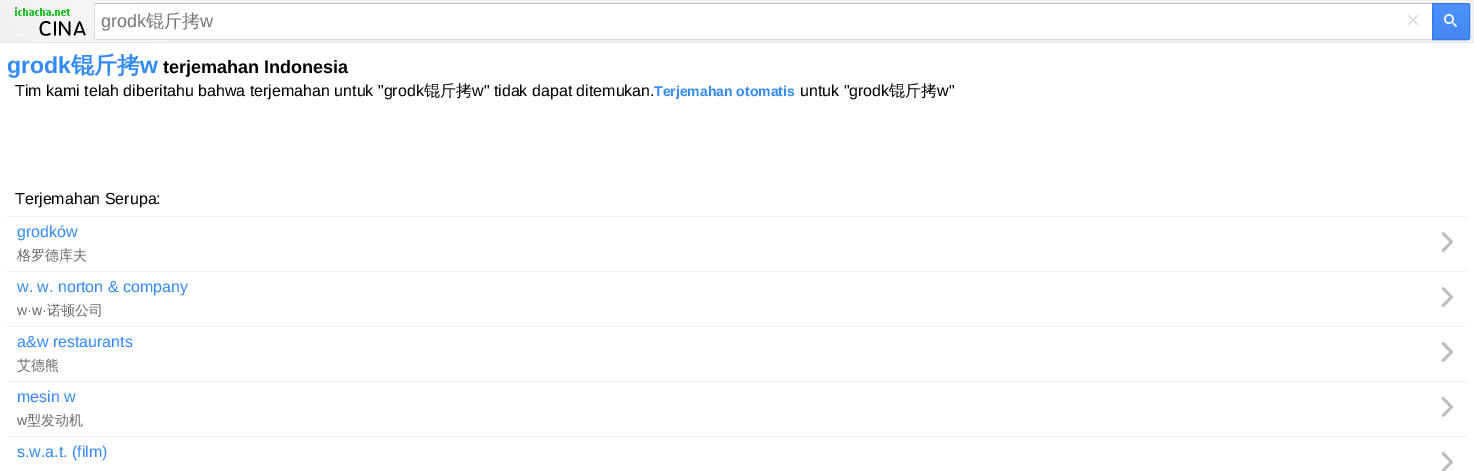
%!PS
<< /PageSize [1474 471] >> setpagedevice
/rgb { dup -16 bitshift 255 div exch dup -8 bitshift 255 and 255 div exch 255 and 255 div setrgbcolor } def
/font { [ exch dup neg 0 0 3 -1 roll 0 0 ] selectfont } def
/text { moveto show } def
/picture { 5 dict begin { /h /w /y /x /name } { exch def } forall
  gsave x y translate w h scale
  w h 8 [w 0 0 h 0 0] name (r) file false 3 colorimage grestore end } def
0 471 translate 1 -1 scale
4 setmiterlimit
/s1 { /LiberationSans-Regular 18 font 16#757575 rgb } def
/s2 { /WenQuanYiZenHei-Medium 18 font 16#757575 rgb } def
/s3 { /LiberationSans-Regular 24 font 16#D9D9D9 rgb } def
/s4 { /LiberationSans-Bold 23 font 16#328AF4 rgb } def
/s5 { /WenQuanYiZenHei-Bold 23 font 16#328AF4 rgb } def
/s6 { /LiberationSans-Bold 18 font 16#000000 rgb } def
/s7 { /LiberationSans-Regular 16 font 16#000000 rgb } def
/s8 { /WenQuanYiZenHei-Medium 16 font 16#000000 rgb } def
/s9 { /LiberationSans-Bold 14 font 16#328AF4 rgb } def
/s10 { /LiberationSans-Regular 16 font 16#328AF4 rgb } def
/s11 { /WenQuanYiZenHei-Medium 14 font 16#666666 rgb } def
/s12 { /LiberationSans-Regular 14 font 16#666666 rgb } def
16#FFFFFF rgb
0 0 1474 471 rectfill
gsave 0 0 moveto 1474 0 lineto 1474 42 lineto 0 42 lineto closepath clip newpath 100 -40 translate 120 120 scale
<< /ShadingType 3 /ColorSpace /DeviceRGB /Coords [0 0 0 0 0 1] /Extend [true true] /Function << /FunctionType 2 /Domain [0 1] /C0 [0.98 0.98 0.98] /C1 [0.945 0.945 0.945] /N 1 >> >> shfill grestore
16#E5E5E5 rgb
0 42 1474 1 rectfill
(pic1.raw) 15 7 72 29 picture
16#FFFFFF rgb
95 4 1337 35 rectfill
16#C0C0C0 rgb
94 3 1338 1 rectfill
16#D9D9D9 rgb
94 39 1338 1 rectfill
94 3 1 37 rectfill
s1
(grodk) 101 27 text
s2
(锟斤拷) 146 27 text
s1
(w) 200 27 text
s3
(×) 1406 28 text
gsave 1433 4 moveto 1470 4 lineto 1470 39 lineto 1433 39 lineto closepath clip newpath
<< /ShadingType 2 /ColorSpace /DeviceRGB /Coords [1433 4 1433 39] /Extend [true true] /Function << /FunctionType 2 /Domain [0 1] /C0 [0.302 0.565 0.996] /C1 [0.278 0.529 0.929] /N 1 >> >> shfill grestore
16#3079ED rgb
1432.5 3.5 moveto 1468 3.5 lineto 1469 3.5 1469.5 4 1469.5 5 curveto 1469.5 38 lineto 1469.5 39 1469 39.5 1468 39.5 curveto 1432.5 39.5 lineto closepath stroke
(pic2.raw) 1444 14 13 13 picture
s4
(grodk) 7 73 text
s5
(锟斤拷) 71 73 text
s4
(w) 140 73 text
s6
(terjemahan Indonesia) 163 73 text
s7
(Tim kami telah diberitahu bahwa terjemahan untuk "grodk) 15 96 text
s8
(锟斤拷) 424 96 text
s7
(w" tidak dapat ditemukan.) 472 96 text
s9
(Terjemahan otomatis) 654 96 text
s7
(untuk "grodk) 800 96 text
s8
(锟斤拷) 889 96 text
s7
(w") 937 96 text
(Terjemahan Serupa:) 15 204 text
16#F0F0F0 rgb
7 216 1460 1 rectfill
s10
(grodków) 17 237 text
s11
(格罗德库夫) 17 260 text
(pic3.raw) 1441 232 12 20 picture
16#F0F0F0 rgb
7 271 1460 1 rectfill
s10
(w. w. norton & company) 17 292 text
s12
(w·w·) 17 315 text
s11
(诺顿公司) 47 315 text
(pic3.raw) 1441 287 12 20 picture
16#F0F0F0 rgb
7 326 1460 1 rectfill
s10
(a&w restaurants) 17 347 text
s11
(艾德熊) 17 370 text
(pic3.raw) 1441 342 12 20 picture
16#F0F0F0 rgb
7 381 1460 1 rectfill
s10
(mesin w) 17 402 text
s12
(w) 17 425 text
s11
(型发动机) 27 425 text
(pic3.raw) 1441 397 12 20 picture
16#F0F0F0 rgb
7 436 1460 1 rectfill
s10
(s.w.a.t. \(film\)) 17 457 text
(pic4.raw) 1441 452 12 19 picture
showpage
